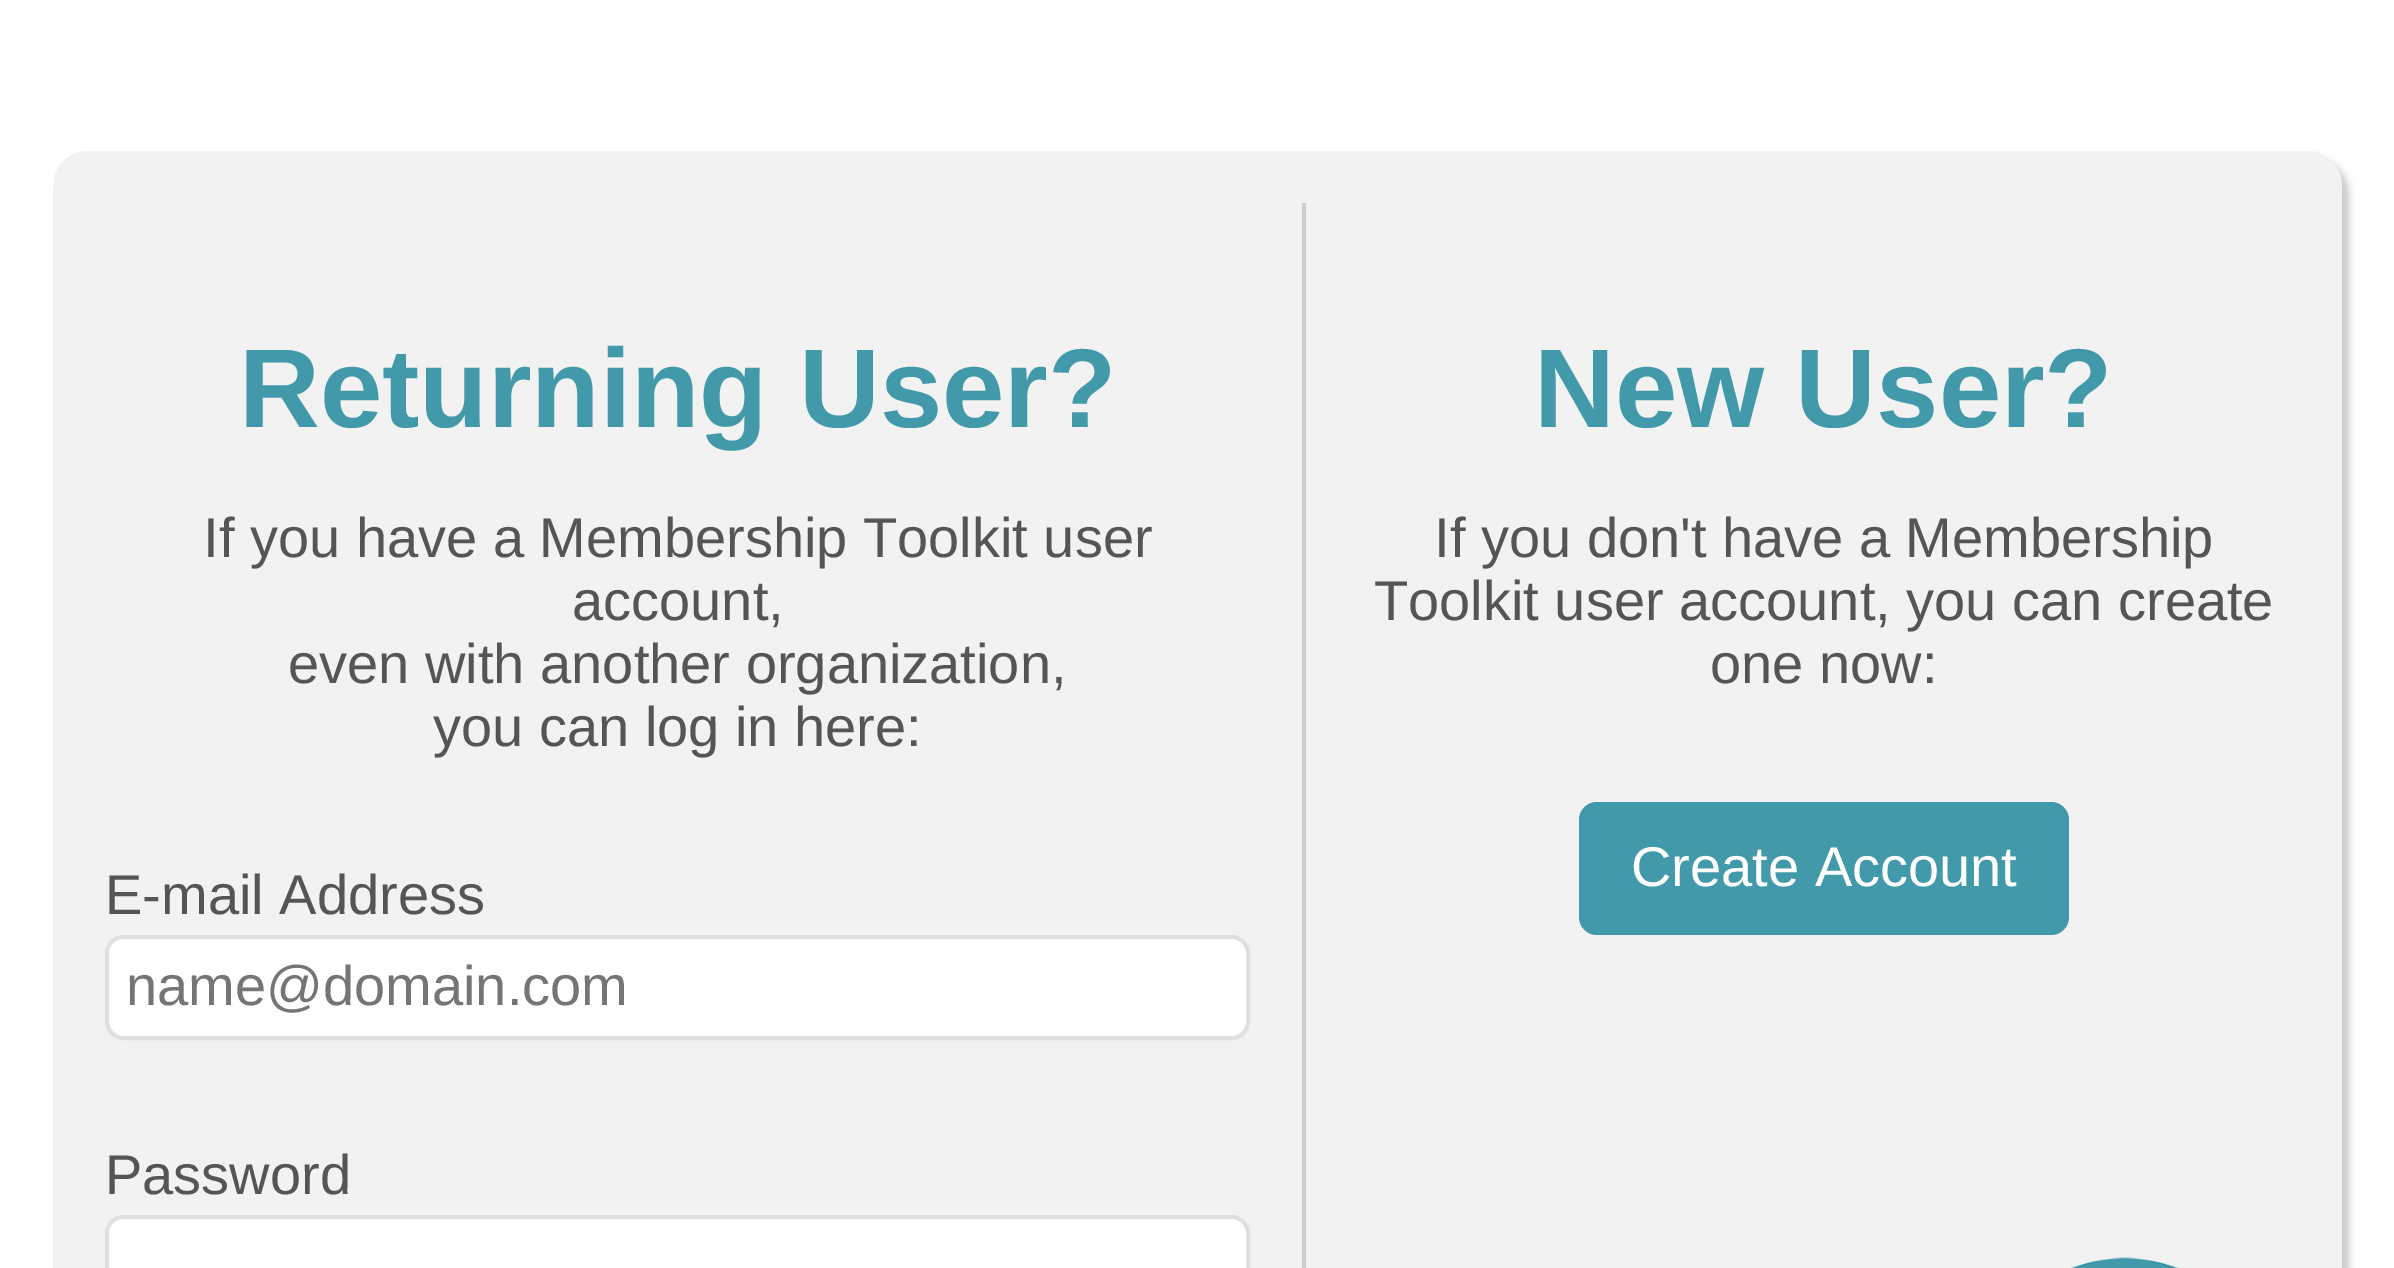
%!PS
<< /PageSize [2394 1268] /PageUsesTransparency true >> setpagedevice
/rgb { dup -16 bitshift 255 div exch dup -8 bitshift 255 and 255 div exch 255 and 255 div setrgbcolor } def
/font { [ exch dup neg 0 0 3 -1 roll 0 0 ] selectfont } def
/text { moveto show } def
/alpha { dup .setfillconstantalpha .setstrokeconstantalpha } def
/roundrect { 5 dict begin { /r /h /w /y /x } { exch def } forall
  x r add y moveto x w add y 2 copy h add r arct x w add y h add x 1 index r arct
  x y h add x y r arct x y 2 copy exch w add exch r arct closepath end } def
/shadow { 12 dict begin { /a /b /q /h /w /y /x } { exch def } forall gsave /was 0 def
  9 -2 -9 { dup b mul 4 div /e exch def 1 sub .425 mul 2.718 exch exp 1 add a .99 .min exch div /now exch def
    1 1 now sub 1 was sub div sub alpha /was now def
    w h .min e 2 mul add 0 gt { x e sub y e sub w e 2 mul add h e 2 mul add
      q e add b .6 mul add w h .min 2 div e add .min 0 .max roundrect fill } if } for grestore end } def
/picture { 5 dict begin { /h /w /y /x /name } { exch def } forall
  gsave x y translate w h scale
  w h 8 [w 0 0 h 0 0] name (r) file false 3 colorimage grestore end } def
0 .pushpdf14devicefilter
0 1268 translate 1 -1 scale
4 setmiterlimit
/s1 { /LiberationSans-Bold 112 font 16#4299AA rgb } def
/s2 { /LiberationSans-Regular 56 font 16#555555 rgb } def
/s3 { /LiberationSans-Regular 56 font 16#757575 rgb } def
/s4 { /LiberationSans-Regular 56 font 16#FFFFFF rgb } def
16#FFFFFF rgb
0 0 2394 1268 rectfill
16#000000 rgb
60 158 2289 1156 35 3.5 0.2 shadow
16#F2F2F2 rgb
53 151 2289 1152 35 roundrect fill
16#CCCCCC rgb
1302 203 4 1065 rectfill
s1
(Returning User?) 239 427 text
s2
(If you have a Membership Toolkit user) 203 557 text
(account,) 572 620 text
(even with another organization,) 288 683 text
(you can log in here:) 433 746 text
(E-mail Address) 105 914 text
16#FFFFFF rgb
107 937 1141 101 16 roundrect gsave fill grestore
16#E0E0E0 rgb
4 setlinewidth
stroke
s3
(name@domain.com) 126 1005 text
s2
(Password) 105 1194 text
16#FFFFFF rgb
107 1217 1141 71 16 roundrect gsave fill grestore
16#E0E0E0 rgb
stroke
s1
(New User?) 1534 427 text
s2
(If you don't have a Membership) 1434 557 text
(Toolkit user account, you can create) 1374 620 text
(one now:) 1710 683 text
16#4299AA rgb
1579 802 490 133 18 roundrect fill
s4
(Create Account) 1631 886 text
(pic1.raw) 2070 1257 109 11 picture
.poppdf14devicefilter showpage
